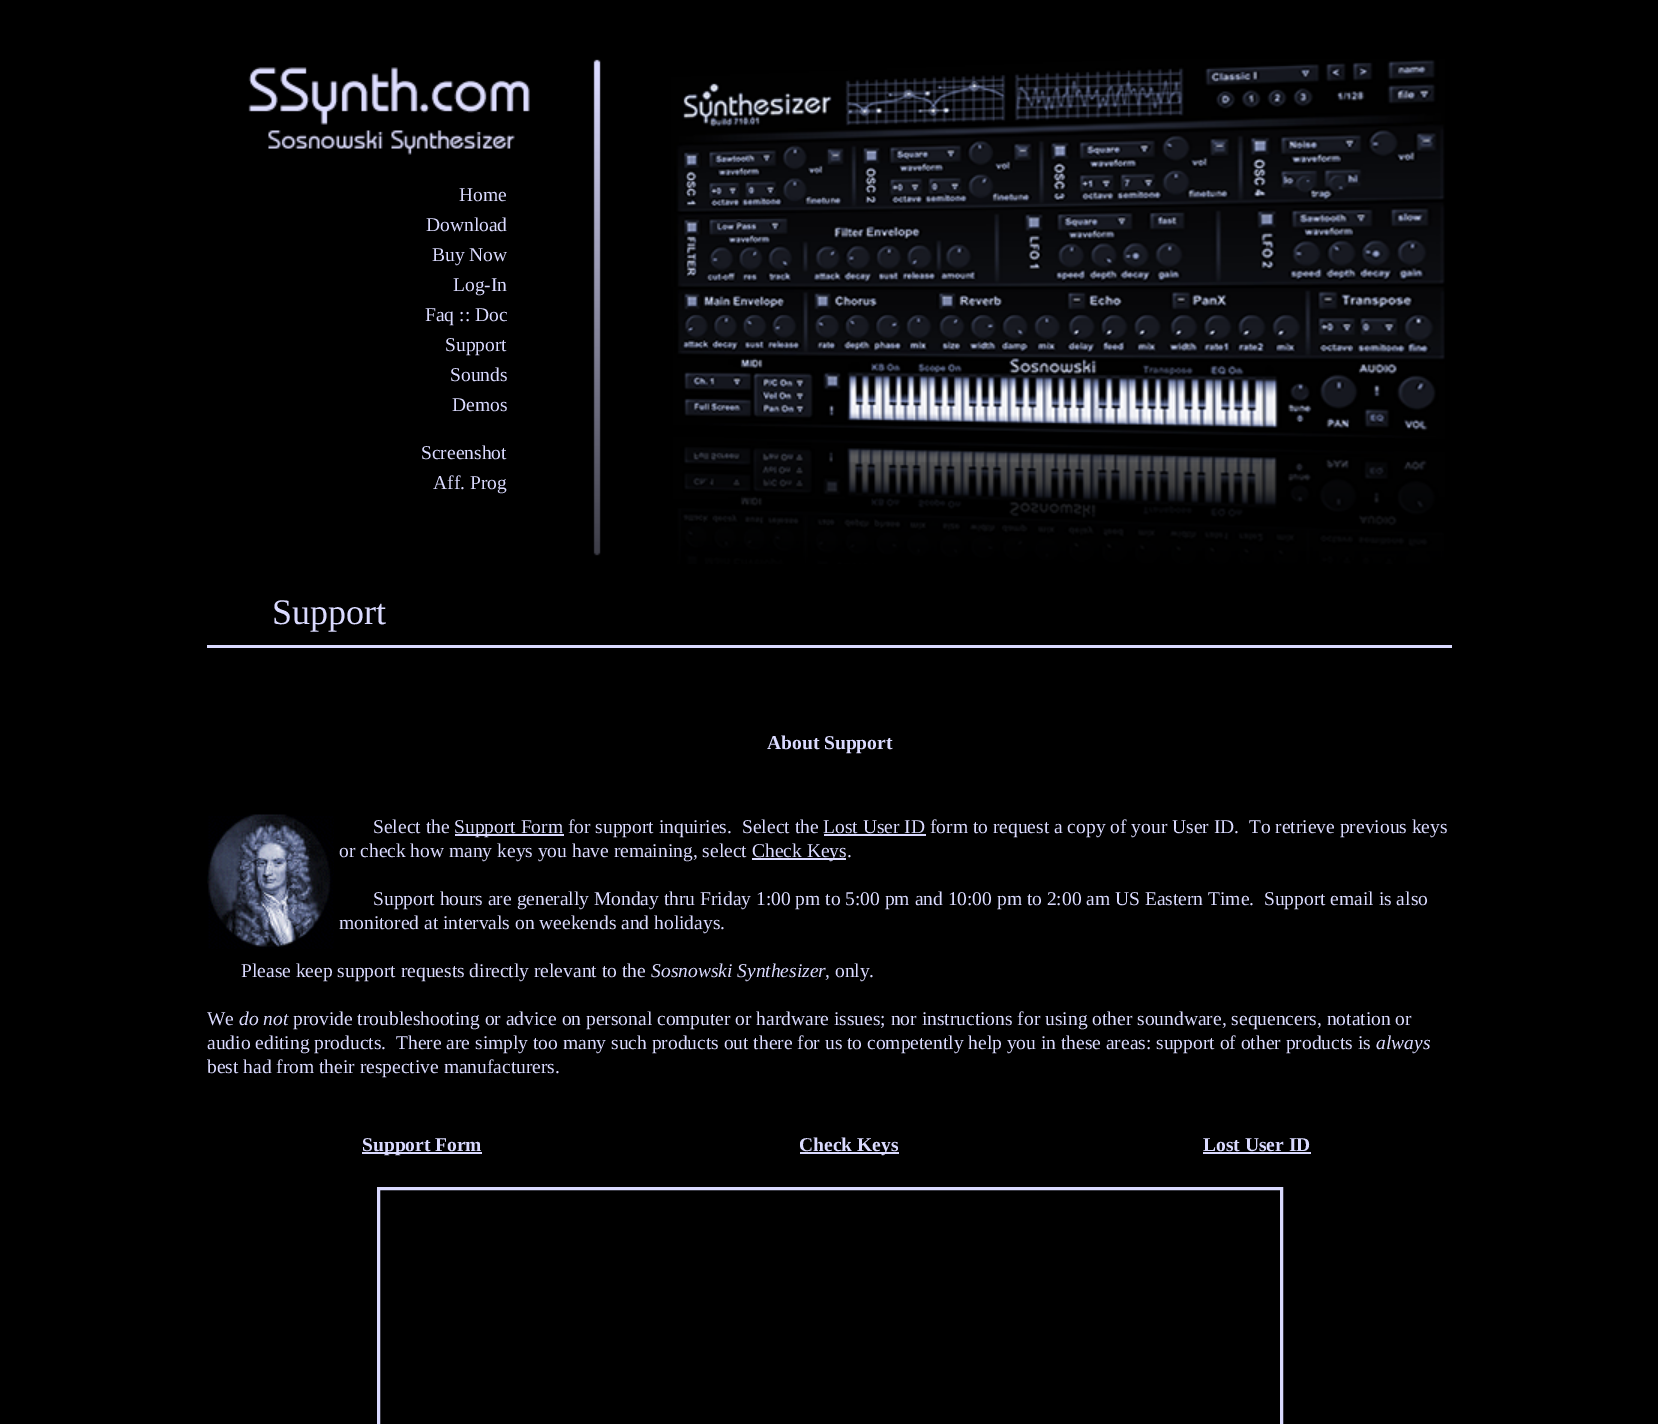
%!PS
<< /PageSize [1658 1424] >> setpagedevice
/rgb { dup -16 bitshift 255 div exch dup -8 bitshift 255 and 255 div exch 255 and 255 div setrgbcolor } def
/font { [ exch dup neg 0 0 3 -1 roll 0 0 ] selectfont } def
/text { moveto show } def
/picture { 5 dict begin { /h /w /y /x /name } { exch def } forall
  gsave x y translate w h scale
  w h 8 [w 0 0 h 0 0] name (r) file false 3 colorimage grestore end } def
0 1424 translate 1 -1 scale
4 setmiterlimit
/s1 { /LiberationSerif-Regular 19.5 font 16#DADAFF rgb } def
/s2 { /LiberationSerif-Regular 36 font 16#DADAFF rgb } def
/s3 { /LiberationSerif-Bold 19.5 font 16#DADAFF rgb } def
/s4 { /LiberationSerif-Italic 19.5 font 16#DADAFF rgb } def
16#000000 rgb
0 0 1658 1424 rectfill
(pic1.raw) 248 59 1197 505 picture
s1
(Home) 459 201 text
(Download) 426 231 text
(Buy Now) 432 261 text
(Log-In) 453 291 text
(Faq :: Doc) 425 321 text
(Support) 445 351 text
(Sounds) 450 381 text
(Demos) 452 411 text
(Screenshot) 421 459 text
(Aff. Prog) 433 489 text
s2
(Support) 272 624 text
207 645 1245 3 rectfill
s3
(About Support) 767 749 text
(pic2.raw) 207 814 127 135 picture
s1
(Select the) 373 833 text
455 834 109 2 rectfill
(Support Form for support inquiries.) 454 833 text
(Select the Lost User ID form to request a copy of your User ID.  To retrieve previous keys) 742 833 text
824 834 102 2 rectfill
(or check how many keys you have remaining, select) 339 857 text
752 858 94 2 rectfill
(Check Keys.) 752 857 text
(Support hours are generally Monday thru Friday 1:00 pm to 5:00 pm and 10:00 pm to 2:00 am US Eastern Time.  Support email is also) 373 905 text
(monitored at intervals on weekends and holidays.) 339 929 text
(Please keep support requests directly relevant to the) 241 977 text
s4
(Sosnowski Synthesizer) 651 977 text
s1
(, only.) 825 977 text
(We) 207 1025 text
s4
(do not) 239 1025 text
s1
(provide troubleshooting or advice on personal computer or hardware issues; nor instructions for using other soundware, sequencers, notation or) 293 1025 text
(audio editing products.  There are simply too many such products out there for us to competently help you in these areas: support of other products is) 207 1049 text
s4
(always) 1376 1049 text
s1
(best had from their respective manufacturers.) 207 1073 text
362 1152 120 2 rectfill
s3
(Support Form) 362 1151 text
800 1152 99 2 rectfill
(Check Keys) 799 1151 text
(Lost User ID) 1203 1151 text
1203 1152 108 2 rectfill
3 setlinewidth
378.5 1188.5 903 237 rectstroke
showpage
